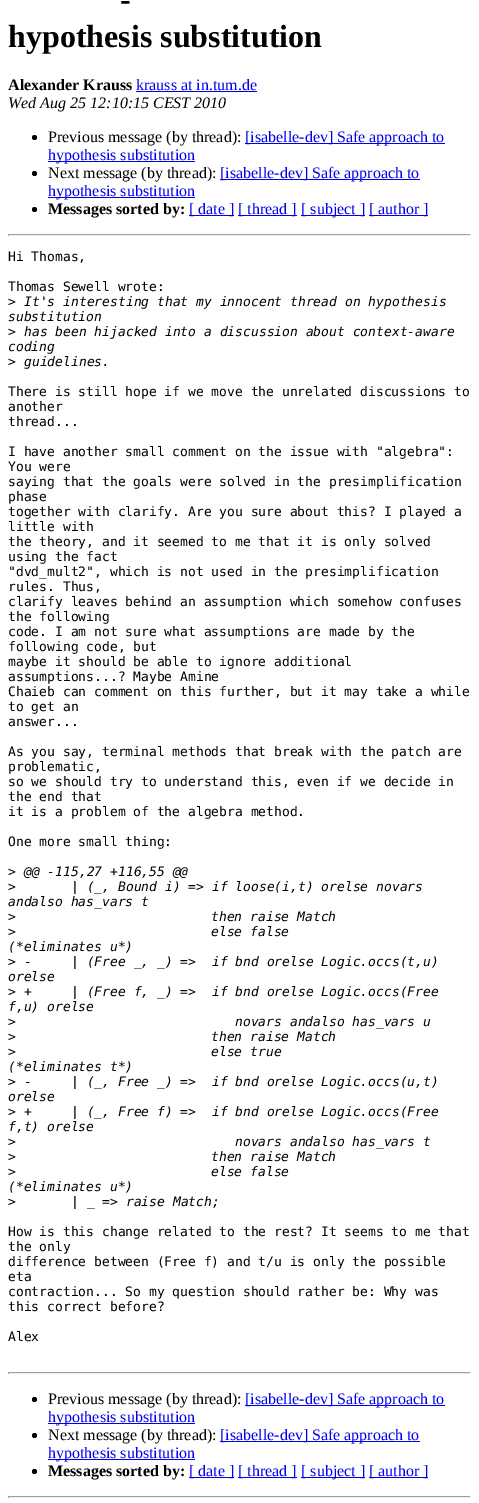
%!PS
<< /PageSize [479 1503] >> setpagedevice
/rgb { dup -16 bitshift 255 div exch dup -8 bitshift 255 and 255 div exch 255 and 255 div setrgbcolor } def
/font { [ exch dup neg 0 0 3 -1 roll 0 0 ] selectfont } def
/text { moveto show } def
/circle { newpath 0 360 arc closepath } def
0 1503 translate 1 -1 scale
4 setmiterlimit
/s1 { /LiberationSerif-Bold 32 font 16#000000 rgb } def
/s2 { /LiberationSerif-Bold 16 font 16#000000 rgb } def
/s3 { /LiberationSerif-Regular 16 font 16#0000EE rgb } def
/s4 { /LiberationSerif-Italic 16 font 16#000000 rgb } def
/s5 { /LiberationSerif-Regular 16 font 16#000000 rgb } def
/s6 { /DejaVuSansMono-Regular 13 font 16#000000 rgb } def
/s7 { /DejaVuSansMono-Italic 13 font 16#000000 rgb } def
16#FFFFFF rgb
0 0 479 1503 rectfill
s1
(-) 120 10 text
(hypothesis substitution) 8 47 text
s2
(Alexander Krauss) 8 90 text
s3
(krauss at in.tum.de) 136 90 text
136 91 121 1 rectfill
s4
(Wed Aug 25 12:10:15 CEST 2010) 8 108 text
34.5 137.5 2.5 circle fill
s5
(Previous message \(by thread\):) 48 142 text
16#0000EE rgb
245 143 200 1 rectfill
([isabelle-dev] Safe approach to) 245 142 text
48 161 147 1 rectfill
(hypothesis substitution) 48 160 text
16#000000 rgb
34.5 173.5 2.5 circle fill
(Next message \(by thread\):) 48 178 text
16#0000EE rgb
220 179 200 1 rectfill
([isabelle-dev] Safe approach to) 220 178 text
48 197 147 1 rectfill
(hypothesis substitution) 48 196 text
16#000000 rgb
34.5 209.5 2.5 circle fill
s2
(Messages sorted by:) 48 214 text
16#0000EE rgb
189 215 45 1 rectfill
s3
([ date ]) 189 214 text
238 215 59 1 rectfill
([ thread ]) 238 214 text
301 215 64 1 rectfill
([ subject ]) 301 214 text
369 215 59 1 rectfill
([ author ]) 369 214 text
16#9F9F9F rgb
8 234 463 1 rectfill
16#EEEEEE rgb
470 234 1 2 rectfill
8 235 463 1 rectfill
16#9F9F9F rgb
8 234 1 2 rectfill
s6
(Hi Thomas,) 8 261 text
(Thomas Sewell wrote:) 8 291 text
(>) 8 306 text
s7
(It's interesting that my innocent thread on hypothesis) 24 306 text
(substitution) 8 321 text
s6
(>) 8 336 text
s7
(has been hijacked into a discussion about context-aware) 24 336 text
(coding) 8 351 text
s6
(>) 8 366 text
s7
(guidelines.) 24 366 text
s6
(There is still hope if we move the unrelated discussions to) 8 396 text
(another) 8 411 text
(thread...) 8 426 text
(I have another small comment on the issue with "algebra":) 8 456 text
(You were) 8 471 text
(saying that the goals were solved in the presimplification) 8 486 text
(phase) 8 501 text
(together with clarify. Are you sure about this? I played a) 8 516 text
(little with) 8 531 text
(the theory, and it seemed to me that it is only solved) 8 546 text
(using the fact) 8 561 text
("dvd_mult2", which is not used in the presimplification) 8 576 text
(rules. Thus,) 8 591 text
(clarify leaves behind an assumption which somehow confuses) 8 606 text
(the following) 8 621 text
(code. I am not sure what assumptions are made by the) 8 636 text
(following code, but) 8 651 text
(maybe it should be able to ignore additional) 8 666 text
(assumptions...? Maybe Amine) 8 681 text
(Chaieb can comment on this further, but it may take a while) 8 696 text
(to get an) 8 711 text
(answer...) 8 726 text
(As you say, terminal methods that break with the patch are) 8 756 text
(problematic,) 8 771 text
(so we should try to understand this, even if we decide in) 8 786 text
(the end that) 8 801 text
(it is a problem of the algebra method.) 8 816 text
(One more small thing:) 8 846 text
(>) 8 876 text
s7
(@@ -115,27 +116,55 @@) 24 876 text
s6
(>) 8 891 text
s7
(| \(_, Bound i\) => if loose\(i,t\) orelse novars) 71 891 text
(andalso has_vars t) 8 906 text
s6
(>) 8 921 text
s7
(then raise Match) 211 921 text
s6
(>) 8 936 text
s7
(else false) 211 936 text
(\(*eliminates u*\)) 8 951 text
s6
(>) 8 966 text
s7
(-     | \(Free _, _\) =>  if bnd orelse Logic.occs\(t,u\)) 24 966 text
(orelse) 8 981 text
s6
(>) 8 996 text
s7
(+     | \(Free f, _\) =>  if bnd orelse Logic.occs\(Free) 24 996 text
(f,u\) orelse) 8 1011 text
s6
(>) 8 1026 text
s7
(novars andalso has_vars u) 235 1026 text
s6
(>) 8 1041 text
s7
(then raise Match) 211 1041 text
s6
(>) 8 1056 text
s7
(else true) 211 1056 text
(\(*eliminates t*\)) 8 1071 text
s6
(>) 8 1086 text
s7
(-     | \(_, Free _\) =>  if bnd orelse Logic.occs\(u,t\)) 24 1086 text
(orelse) 8 1101 text
s6
(>) 8 1116 text
s7
(+     | \(_, Free f\) =>  if bnd orelse Logic.occs\(Free) 24 1116 text
(f,t\) orelse) 8 1131 text
s6
(>) 8 1146 text
s7
(novars andalso has_vars t) 235 1146 text
s6
(>) 8 1161 text
s7
(then raise Match) 211 1161 text
s6
(>) 8 1176 text
s7
(else false) 211 1176 text
(\(*eliminates u*\)) 8 1191 text
s6
(>) 8 1206 text
s7
(| _ => raise Match;) 71 1206 text
s6
(How is this change related to the rest? It seems to me that) 8 1236 text
(the only) 8 1251 text
(difference between \(Free f\) and t/u is only the possible) 8 1266 text
(eta) 8 1281 text
(contraction... So my question should rather be: Why was) 8 1296 text
(this correct before?) 8 1311 text
(Alex) 8 1341 text
16#9F9F9F rgb
8 1372 463 1 rectfill
16#EEEEEE rgb
470 1372 1 2 rectfill
8 1373 463 1 rectfill
16#9F9F9F rgb
8 1372 1 2 rectfill
16#000000 rgb
34.5 1399.5 2.5 circle fill
s5
(Previous message \(by thread\):) 48 1404 text
16#0000EE rgb
245 1405 200 1 rectfill
([isabelle-dev] Safe approach to) 245 1404 text
48 1423 147 1 rectfill
(hypothesis substitution) 48 1422 text
16#000000 rgb
34.5 1435.5 2.5 circle fill
(Next message \(by thread\):) 48 1440 text
16#0000EE rgb
220 1441 200 1 rectfill
([isabelle-dev] Safe approach to) 220 1440 text
48 1459 147 1 rectfill
(hypothesis substitution) 48 1458 text
16#000000 rgb
34.5 1471.5 2.5 circle fill
s2
(Messages sorted by:) 48 1476 text
16#0000EE rgb
189 1477 45 1 rectfill
s3
([ date ]) 189 1476 text
238 1477 59 1 rectfill
([ thread ]) 238 1476 text
301 1477 64 1 rectfill
([ subject ]) 301 1476 text
369 1477 59 1 rectfill
([ author ]) 369 1476 text
16#9F9F9F rgb
8 1496 463 1 rectfill
16#EEEEEE rgb
470 1496 1 2 rectfill
8 1497 463 1 rectfill
16#9F9F9F rgb
8 1496 1 2 rectfill
showpage
